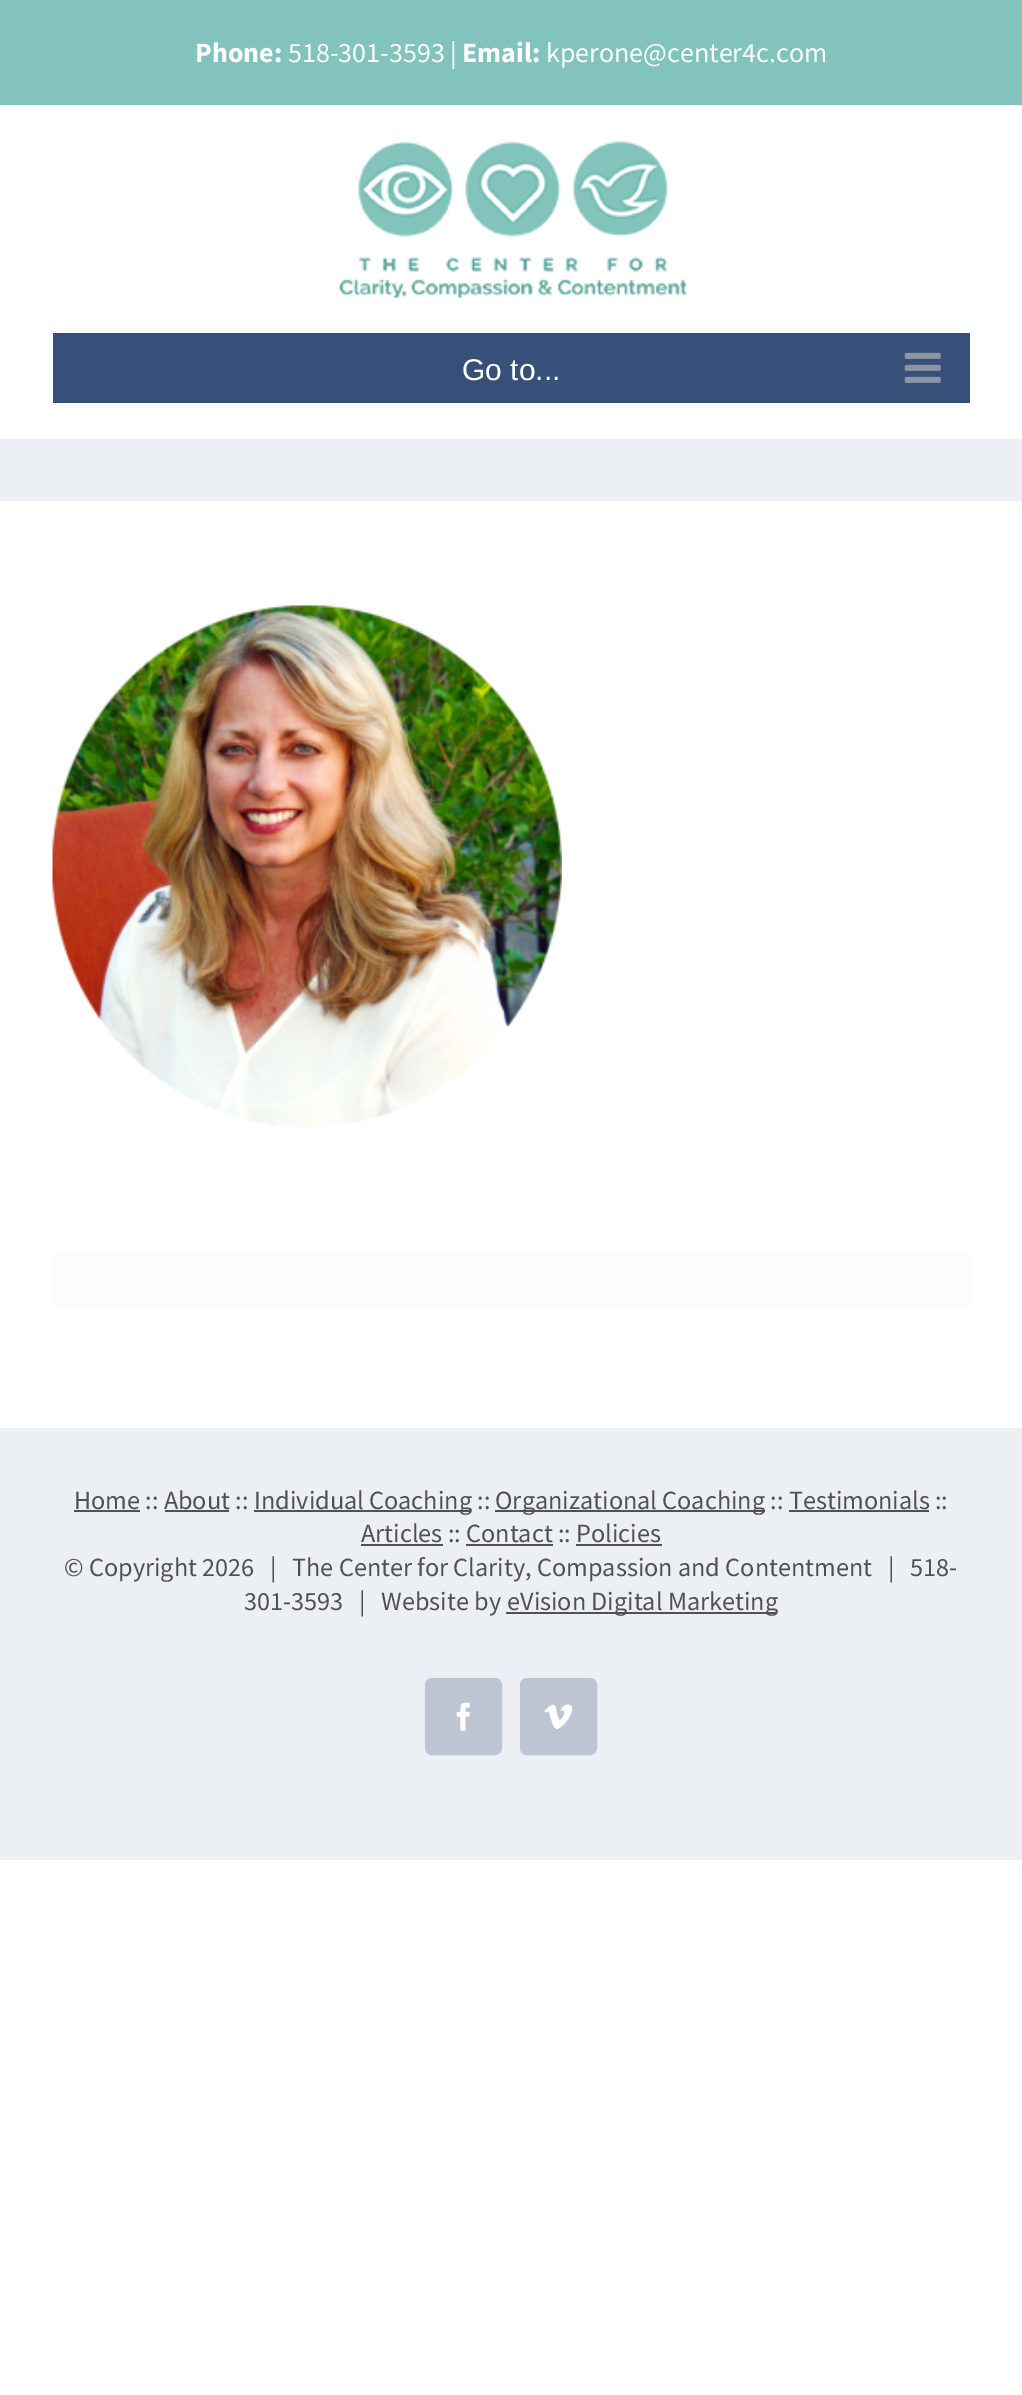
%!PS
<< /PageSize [1022 2395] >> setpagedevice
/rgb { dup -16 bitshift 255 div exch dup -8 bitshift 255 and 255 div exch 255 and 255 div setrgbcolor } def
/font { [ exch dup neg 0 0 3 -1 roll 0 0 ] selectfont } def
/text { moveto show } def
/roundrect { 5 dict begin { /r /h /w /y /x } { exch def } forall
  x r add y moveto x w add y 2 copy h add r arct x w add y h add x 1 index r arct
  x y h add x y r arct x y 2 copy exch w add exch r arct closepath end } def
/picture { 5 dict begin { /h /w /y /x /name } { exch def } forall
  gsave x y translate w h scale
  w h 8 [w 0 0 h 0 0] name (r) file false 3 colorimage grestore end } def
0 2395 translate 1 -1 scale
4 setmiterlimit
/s1 { /SourceSansPro-Bold 28 font 16#FFFFFF rgb } def
/s2 { /SourceSansPro-Regular 28 font 16#FFFFFF rgb } def
/s3 { /LiberationSans-Regular 30 font 16#FFFFFF rgb } def
/s4 { /SourceSansPro-Regular 26.25 font 16#515151 rgb } def
16#FFFFFF rgb
0 0 1022 2395 rectfill
16#82C3BD rgb
0 0 1022 105 rectfill
s1
(Phone:) 195 62 text
s2
(518-301-3593 |) 288 62 text
s1
(Email:) 462 62 text
s2
(kperone@center4c.com) 546 62 text
(pic1.raw) 339 141 348 157 picture
16#37507A rgb
53 333 917 70 rectfill
s3
(Go to...) 462 380 text
(pic2.raw) 904 352 37 31 picture
16#ECF0F5 rgb
0 439 1022 62 rectfill
(pic3.raw) 52 605 510 523 picture
16#FCFCFC rgb
53 1253 917 53 rectfill
16#ECF0F5 rgb
0 1428 1022 432 rectfill
s4
(Home :: About ::) 74 1509 text
74 1510 66 2 rectfill
254 1510 217 2 rectfill
(Individual Coaching ::) 254 1509 text
495 1510 270 2 rectfill
(Organizational Coaching :: Testimonials ::) 495 1509 text
165 1510 64 2 rectfill
789 1510 140 2 rectfill
(Articles :: Contact :: Policies) 361 1542 text
361 1544 82 2 rectfill
466 1544 87 2 rectfill
576 1544 86 2 rectfill
(© Copyright 2026   |   The Center for Clarity, Compassion and Contentment   |   518-) 64 1576 text
(301-3593   |   Website by) 244 1610 text
506 1612 271 2 rectfill
(eVision Digital Marketing) 507 1610 text
16#BCC5D1 rgb
426 1679 75 75 6 roundrect gsave fill grestore
2 setlinewidth
stroke
(pic4.raw) 456 1702 14 29 picture
521 1679 75 75 6 roundrect gsave fill grestore
stroke
(pic5.raw) 544 1704 29 25 picture
showpage
